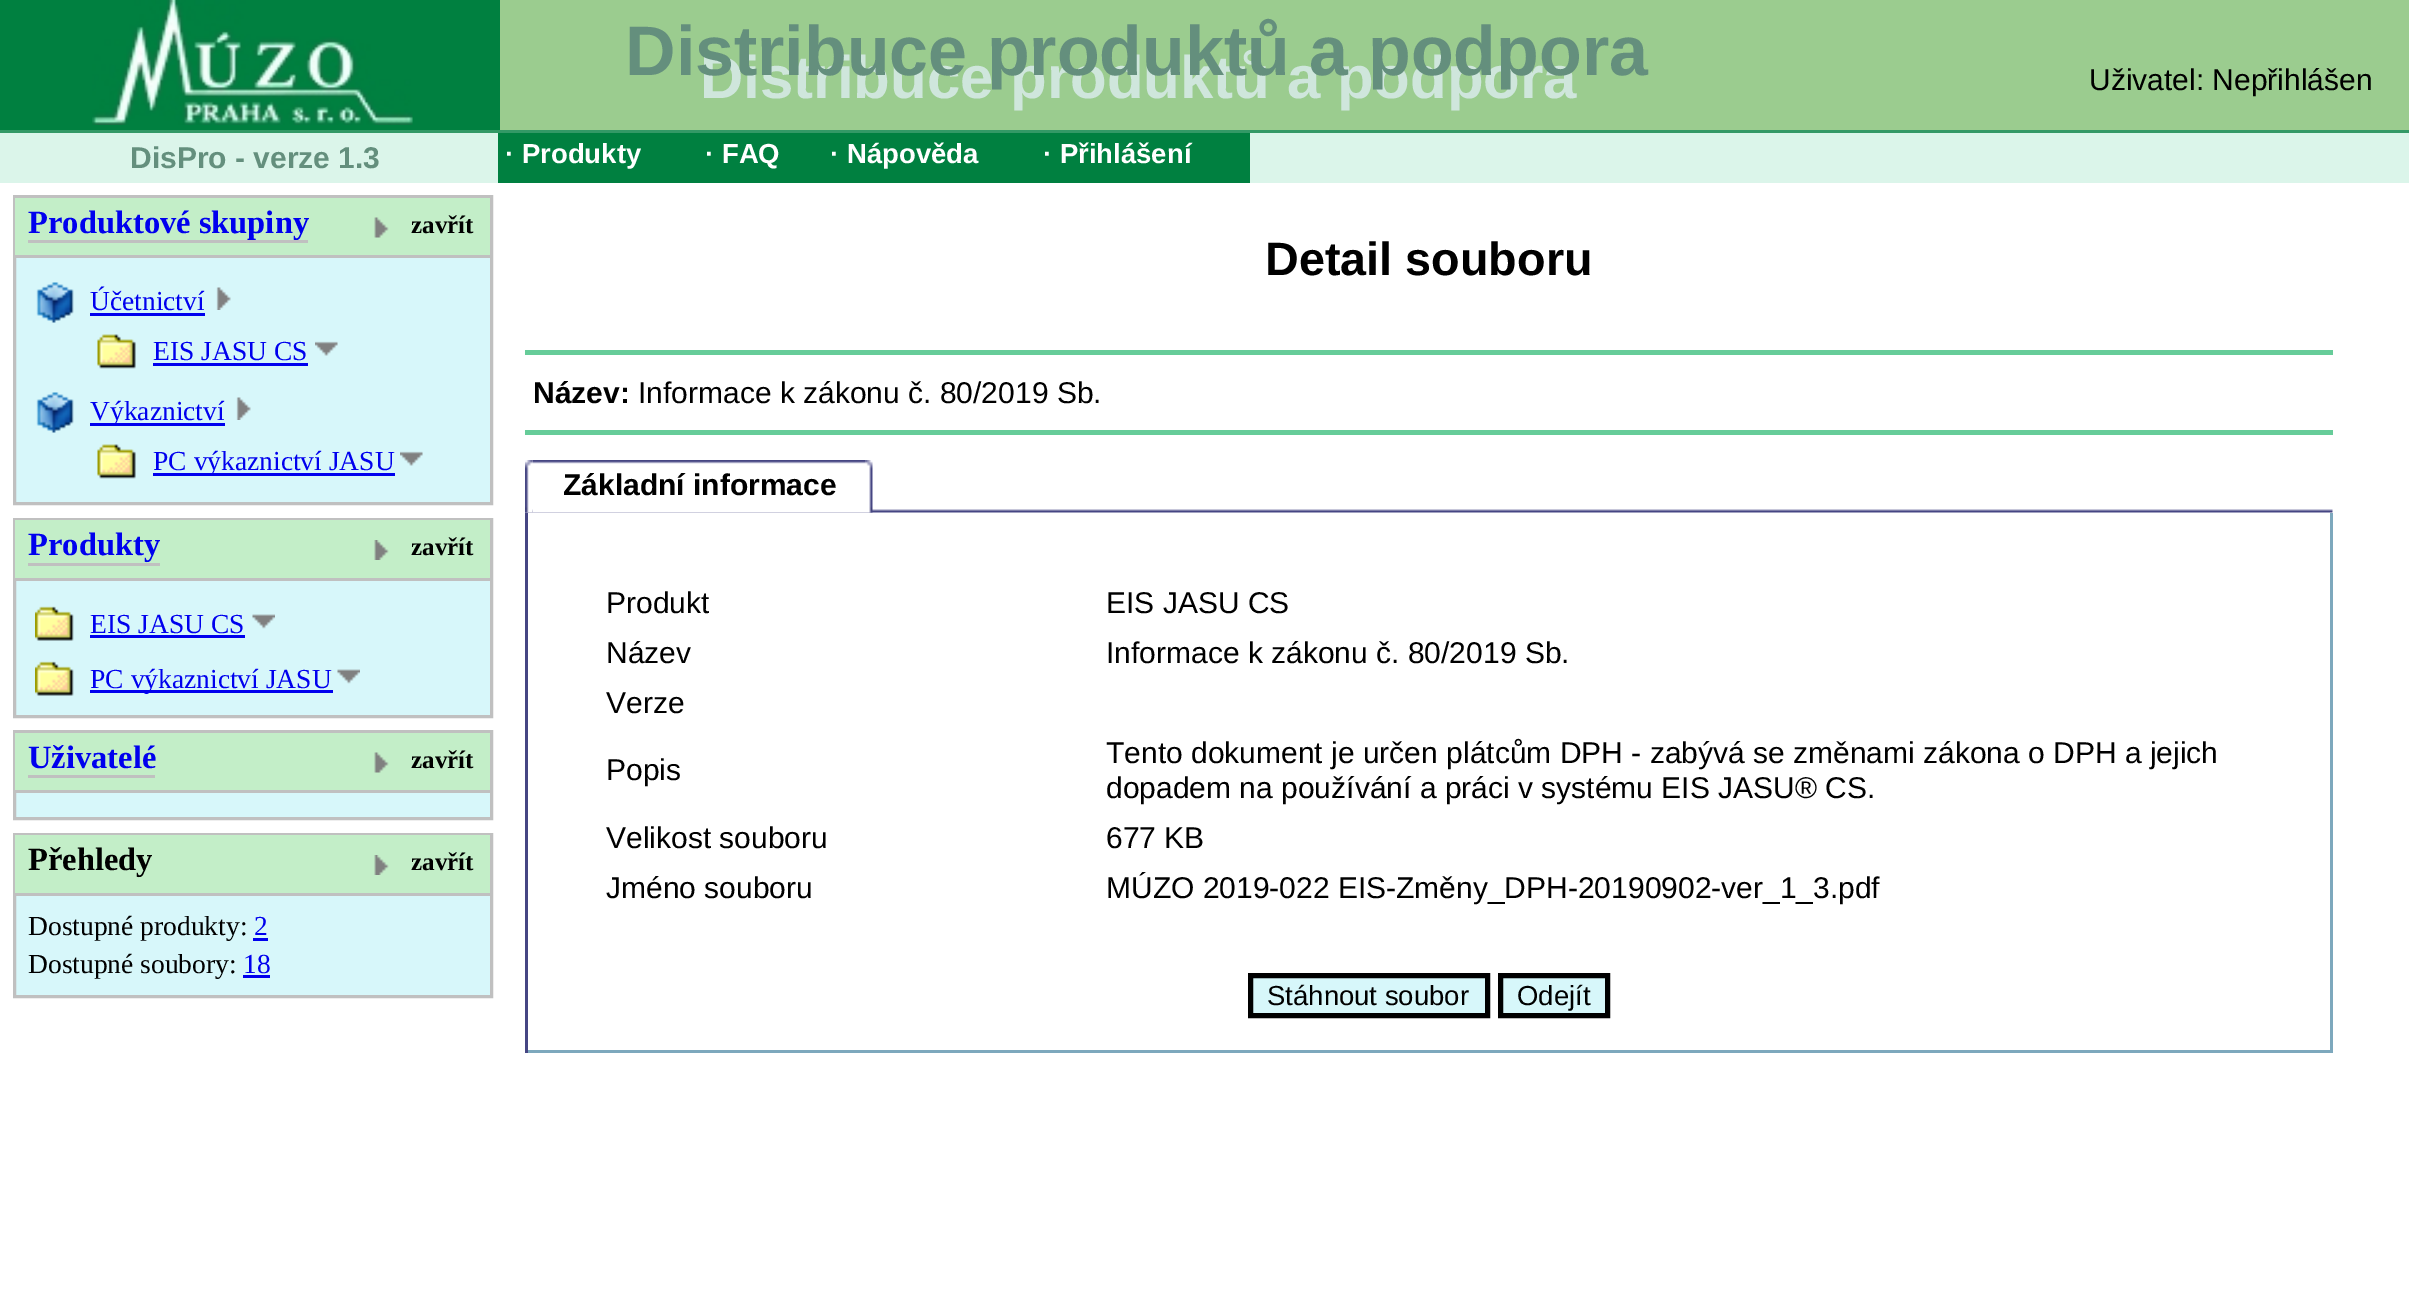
%!PS
<< /PageSize [2409 1315] >> setpagedevice
/rgb { dup -16 bitshift 255 div exch dup -8 bitshift 255 and 255 div exch 255 and 255 div setrgbcolor } def
/font { [ exch dup neg 0 0 3 -1 roll 0 0 ] selectfont } def
/text { moveto show } def
/picture { 5 dict begin { /h /w /y /x /name } { exch def } forall
  gsave x y translate w h scale
  w h 8 [w 0 0 h 0 0] name (r) file false 3 colorimage grestore end } def
0 1315 translate 1 -1 scale
4 setmiterlimit
/s1 { /LiberationSans-Bold 60 font 16#CFE6DC rgb } def
/s2 { /LiberationSans-Bold 70 font 16#648F7D rgb } def
/s3 { /LiberationSans-Regular 30 font 16#000000 rgb } def
/s4 { /LiberationSans-Bold 30 font 16#648F7D rgb } def
/s5 { /LiberationSans-Bold 27.5 font 16#FFFFFF rgb } def
/s6 { /LiberationSerif-Bold 32.5 font 16#0000EE rgb } def
/s7 { /LiberationSerif-Bold 25 font 16#000000 rgb } def
/s8 { /LiberationSerif-Regular 27.5 font 16#0000EE rgb } def
/s9 { /LiberationSerif-Bold 32.5 font 16#000000 rgb } def
/s10 { /LiberationSerif-Regular 27.5 font 16#000000 rgb } def
/s11 { /LiberationSans-Bold 46.75 font 16#000000 rgb } def
/s12 { /LiberationSans-Bold 30 font 16#000000 rgb } def
/s13 { /LiberationSans-Regular 27.5 font 16#000000 rgb } def
16#FFFFFF rgb
0 0 2409 1315 rectfill
16#9BCC8F rgb
500 0 1909 130 rectfill
16#339966 rgb
0 130 2409 3 rectfill
16#008040 rgb
0 0 500 130 rectfill
(pic1.raw) 92 0 321 125 picture
s1
(Distribuce produktů a podpora) 700 98 text
s2
(Distribuce produktů a podpora) 625 75 text
s3
(Uživatel: Nepřihlášen) 2089 90 text
16#DBF5EA rgb
0 133 2409 50 rectfill
16#008040 rgb
498 133 752 50 rectfill
s4
(DisPro - verze 1.3) 130 168 text
s5
(· Produkty) 505 163 text
(· FAQ) 705 163 text
(· Nápověda) 830 163 text
(· Přihlášení) 1043 163 text
16#D7F7FA rgb
16 258 474 244 rectfill
16#C0C0C0 rgb
3 setlinewidth
14.5 196.5 477 307 rectstroke
16#C3EEC8 rgb
15 198 475 57 rectfill
16#C0C0C0 rgb
15 255 475 3 rectfill
s6
(Produktové skupiny) 28 233 text
16#C0C0C0 rgb
28 240 280 3 rectfill
(pic2.raw) 374 217 15 21 picture
s7
(zavřít) 411 233 text
(pic3.raw) 36 282 38 41 picture
s8
(Účetnictví) 90 310 text
90 313 115 3 rectfill
(pic4.raw) 216 287 15 23 picture
(pic5.raw) 97 334 39 35 picture
(EIS JASU CS) 153 360 text
153 363 155 3 rectfill
(pic6.raw) 315 341 23 15 picture
(pic7.raw) 36 392 38 41 picture
90 423 135 3 rectfill
(Výkaznictví) 90 420 text
(pic8.raw) 236 397 15 23 picture
(pic5.raw) 97 444 39 35 picture
153 473 242 3 rectfill
(PC výkaznictví JASU) 153 470 text
(pic6.raw) 400 451 23 15 picture
16#D7F7FA rgb
16 581 474 134 rectfill
16#C0C0C0 rgb
14.5 519.5 477 197 rectstroke
16#C3EEC8 rgb
15 520 475 58 rectfill
16#C0C0C0 rgb
15 578 475 3 rectfill
s6
(Produkty) 28 555 text
16#C0C0C0 rgb
28 563 132 3 rectfill
(pic9.raw) 374 540 15 20 picture
s7
(zavřít) 411 555 text
(pic10.raw) 35 606 39 35 picture
s8
(EIS JASU CS) 90 633 text
90 635 155 3 rectfill
(pic11.raw) 252 614 23 15 picture
(pic10.raw) 35 661 39 35 picture
90 690 243 3 rectfill
(PC výkaznictví JASU) 90 688 text
(pic12.raw) 337 669 23 15 picture
16#D7F7FA rgb
16 793 474 24 rectfill
16#C0C0C0 rgb
14.5 731.5 477 87 rectstroke
16#C3EEC8 rgb
15 733 475 57 rectfill
16#C0C0C0 rgb
15 790 475 3 rectfill
s6
(Uživatelé) 28 768 text
16#C0C0C0 rgb
28 775 127 3 rectfill
(pic2.raw) 374 752 15 21 picture
s7
(zavřít) 411 768 text
16#D7F7FA rgb
16 896 474 99 rectfill
16#C0C0C0 rgb
14.5 834.5 477 162 rectstroke
16#C3EEC8 rgb
15 835 475 58 rectfill
16#C0C0C0 rgb
15 893 475 3 rectfill
s9
(Přehledy) 28 870 text
(pic9.raw) 374 855 15 20 picture
s7
(zavřít) 411 870 text
s10
(Dostupné produkty:) 28 935 text
s8
(2) 254 935 text
253 938 15 3 rectfill
s10
(Dostupné soubory:) 28 973 text
s8
(18) 243 973 text
243 975 27 3 rectfill
s11
(Detail souboru) 1265 275 text
16#66CC99 rgb
525 350 1808 5 rectfill
s12
(Název:) 533 403 text
s3
(Informace k zákonu č. 80/2019 Sb.) 638 403 text
16#66CC99 rgb
525 430 1808 5 rectfill
(pic13.raw) 525 509 1808 4 picture
(pic14.raw) 525 460 8 53 picture
(pic15.raw) 532 460 333 53 picture
s12
(Základní informace) 563 495 text
(pic16.raw) 865 460 8 53 picture
16#7DA8BD rgb
2330 513 3 540 rectfill
525 1050 1808 3 rectfill
16#464683 rgb
525 513 3 540 rectfill
s3
(Produkt) 606 613 text
(EIS JASU CS) 1106 613 text
(Název) 606 663 text
(Informace k zákonu č. 80/2019 Sb.) 1106 663 text
(Verze) 606 713 text
(Popis) 606 780 text
(Tento dokument je určen plátcům DPH - zabývá se změnami zákona o DPH a jejich) 1106 763 text
(dopadem na používání a práci v systému EIS JASU® CS.) 1106 798 text
(Velikost souboru) 606 848 text
(677 KB) 1106 848 text
(Jméno souboru) 606 898 text
(MÚZO 2019-022 EIS-Změny_DPH-20190902-ver_1_3.pdf) 1106 898 text
16#D7F7FA rgb
1250.5 975.5 moveto 1487.5 975.5 lineto 1487.5 1015.5 lineto 1250.5 1015.5 lineto closepath gsave fill grestore
16#000000 rgb
5 setlinewidth
stroke
s13
(Stáhnout soubor) 1267 1005 text
16#D7F7FA rgb
1500.5 975.5 moveto 1607.5 975.5 lineto 1607.5 1015.5 lineto 1500.5 1015.5 lineto closepath gsave fill grestore
16#000000 rgb
stroke
(Odejít) 1517 1005 text
showpage
